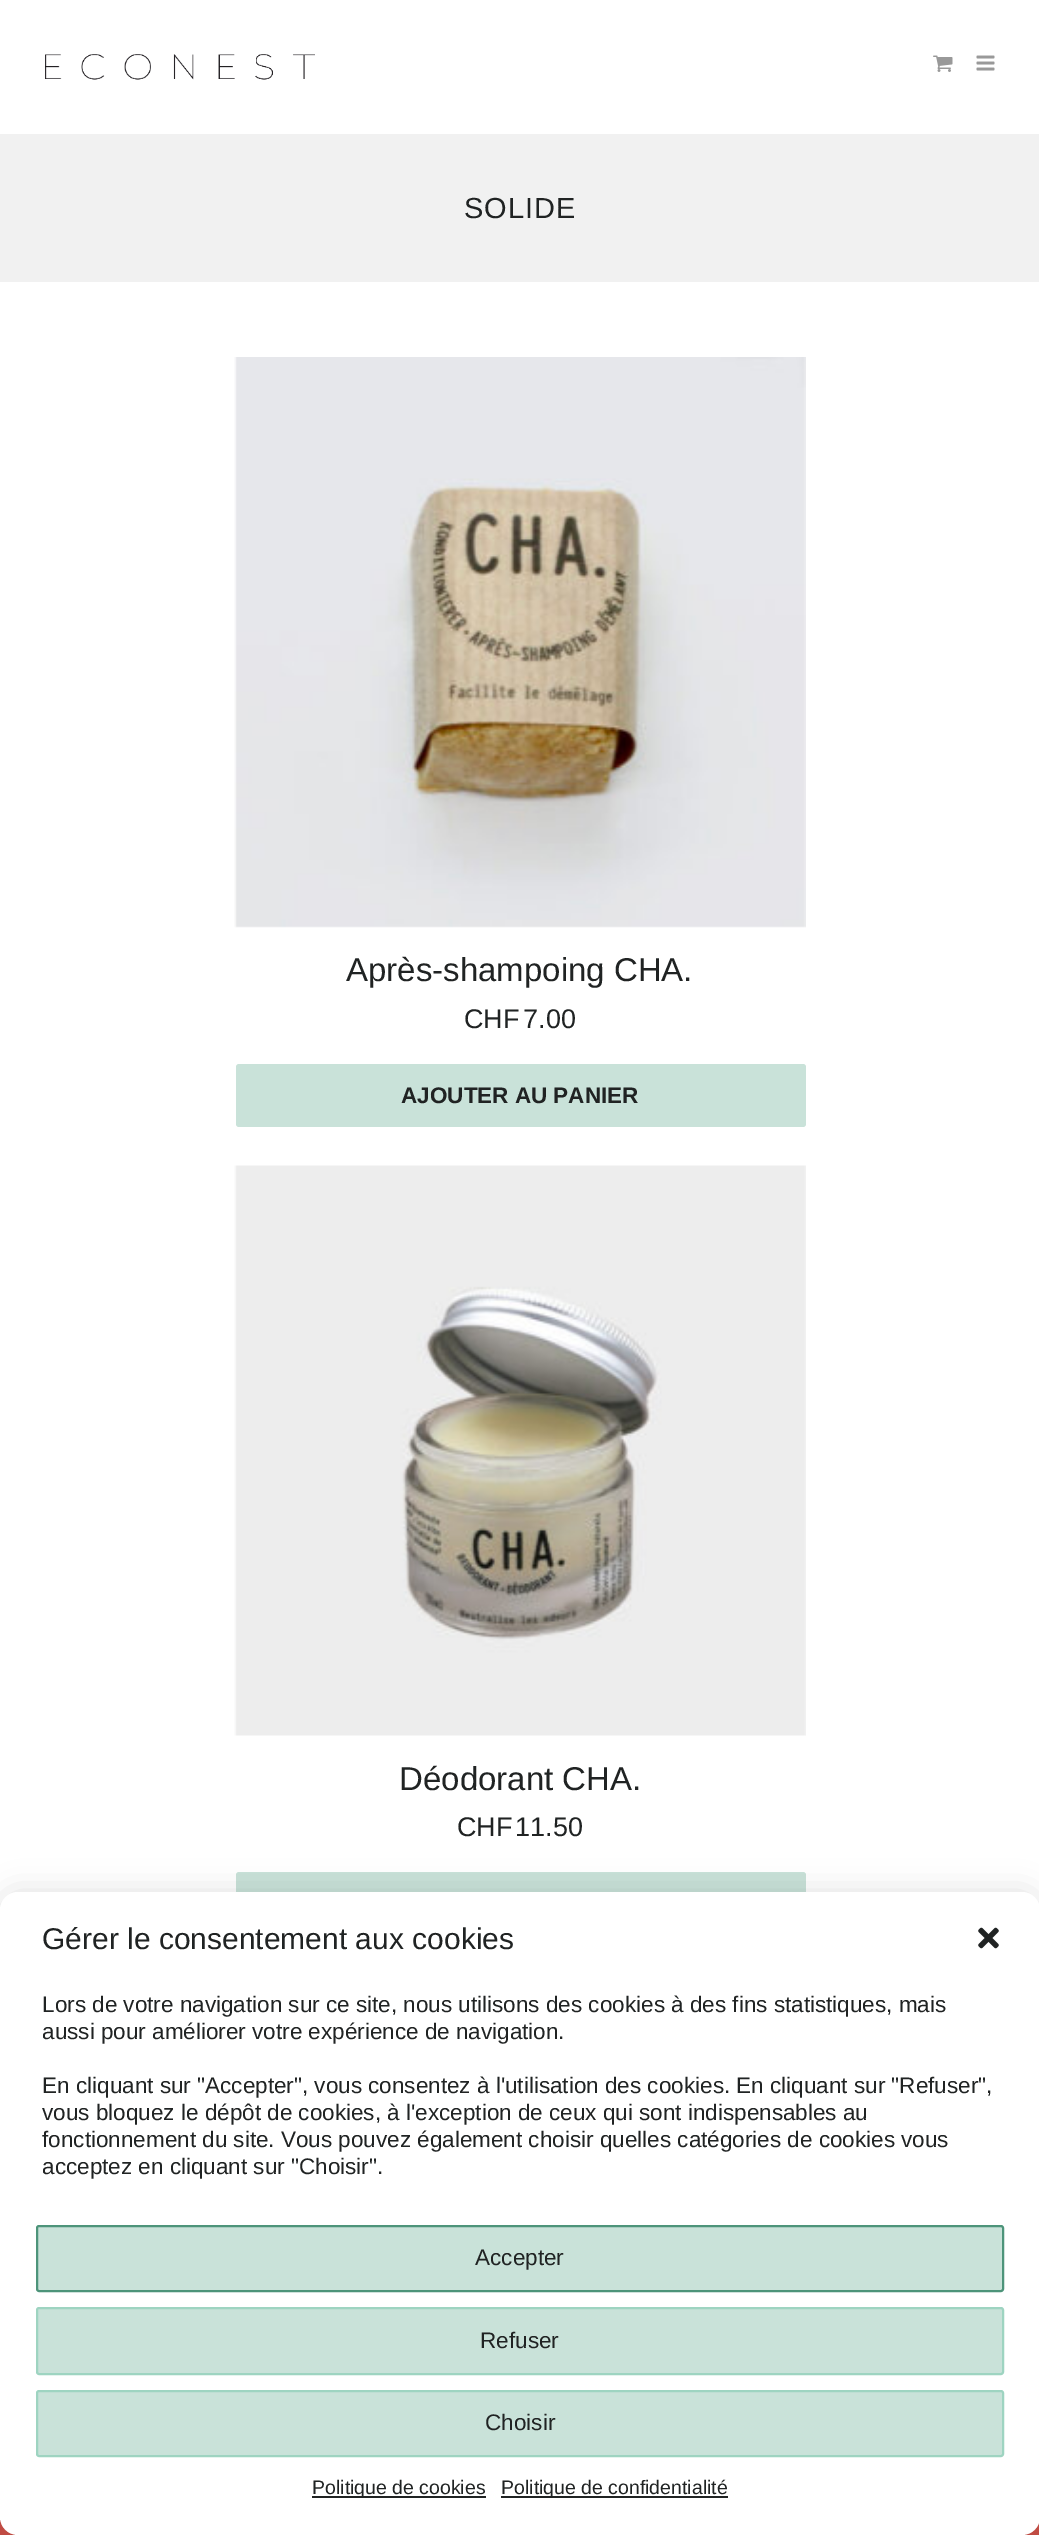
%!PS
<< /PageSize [1039 2535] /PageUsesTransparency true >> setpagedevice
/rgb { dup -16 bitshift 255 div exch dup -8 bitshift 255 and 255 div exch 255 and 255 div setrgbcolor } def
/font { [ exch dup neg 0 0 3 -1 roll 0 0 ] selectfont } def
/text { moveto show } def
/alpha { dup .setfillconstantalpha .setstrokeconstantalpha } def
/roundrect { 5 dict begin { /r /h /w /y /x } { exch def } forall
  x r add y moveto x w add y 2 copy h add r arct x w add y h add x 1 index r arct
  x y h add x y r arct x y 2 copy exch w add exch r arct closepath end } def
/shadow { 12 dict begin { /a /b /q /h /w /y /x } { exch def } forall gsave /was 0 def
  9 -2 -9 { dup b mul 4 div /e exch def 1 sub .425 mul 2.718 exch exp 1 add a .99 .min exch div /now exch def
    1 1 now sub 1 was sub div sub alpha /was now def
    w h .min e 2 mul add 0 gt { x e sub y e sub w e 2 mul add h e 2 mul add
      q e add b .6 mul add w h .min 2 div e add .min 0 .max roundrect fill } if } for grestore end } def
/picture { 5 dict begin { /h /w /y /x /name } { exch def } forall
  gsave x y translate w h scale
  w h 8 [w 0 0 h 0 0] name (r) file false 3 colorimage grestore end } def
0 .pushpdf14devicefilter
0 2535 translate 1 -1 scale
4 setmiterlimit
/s1 { /LiberationSans-Regular 33 font 16#202323 rgb } def
/s2 { /LiberationSans-Regular 27 font 16#202323 rgb } def
/s3 { /LiberationSans-Bold 22.5 font 16#202323 rgb } def
/s4 { /LiberationSans-Regular 30 font 16#202323 rgb } def
/s5 { /LiberationSans-Regular 22.5 font 16#202323 rgb } def
/s6 { /LiberationSans-Regular 19.5 font 16#202323 rgb } def
16#FFFFFF rgb
0 0 1039 2535 rectfill
(pic1.raw) 45 54 270 26 picture
(pic2.raw) 933 55 20 17 picture
(pic3.raw) 976 55 19 16 picture
16#F1F1F1 rgb
0 134 1039 148 rectfill
/LiberationSans-Regular 29 font
16#202323 rgb
464 218 moveto 1 0 (SOLIDE) ashow
(pic4.raw) 234 357 572 571 picture
s1
(Après-shampoing CHA.) 346 981 text
s2
(CHF) 464 1028 text
(7.00) 523 1028 text
16#C9E2D9 rgb
236 1064 570 63 3 roundrect fill
s3
(AJOUTER AU PANIER) 401 1103 text
(pic5.raw) 234 1165 572 571 picture
s1
(Déodorant CHA.) 399 1790 text
s2
(CHF) 457 1836 text
(11.50) 515 1836 text
16#C9E2D9 rgb
236 1872 570 63 3 roundrect fill
16#C84E45 rgb
0 2517 1039 18 rectfill
16#000000 rgb
0 1892 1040 643 18 15 0.12 shadow
16#FFFFFF rgb
0 1892 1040 643 18 roundrect fill
s4
(Gérer le consentement aux cookies) 42 1949 text
(pic6.raw) 978 1927 21 22 picture
s5
(Lors de votre navigation sur ce site, nous utilisons des cookies à des fins statistiques, mais) 42 2012 text
(aussi pour améliorer votre expérience de navigation.) 42 2039 text
(En cliquant sur "Accepter", vous consentez à l'utilisation des cookies. En cliquant sur "Refuser",) 42 2093 text
(vous bloquez le dépôt de cookies, à l'exception de ceux qui sont indispensables au) 42 2120 text
(fonctionnement du site. Vous pouvez également choisir quelles catégories de cookies vous) 42 2147 text
(acceptez en cliquant sur "Choisir".) 42 2174 text
16#C9E2D9 rgb
37 2226 966 65 2 roundrect gsave fill grestore
16#4D947A rgb
2 setlinewidth
stroke
s5
(Accepter) 475 2265 text
16#C9E2D9 rgb
37 2308 966 66 2 roundrect gsave fill grestore
16#9ED4C1 rgb
stroke
s5
(Refuser) 480 2348 text
16#C9E2D9 rgb
37 2391 966 65 2 roundrect gsave fill grestore
16#9ED4C1 rgb
stroke
s5
(Choisir) 485 2430 text
312 2496 174 2 rectfill
s6
(Politique de cookies) 312 2494 text
501 2496 227 2 rectfill
(Politique de confidentialité) 501 2494 text
.poppdf14devicefilter showpage
